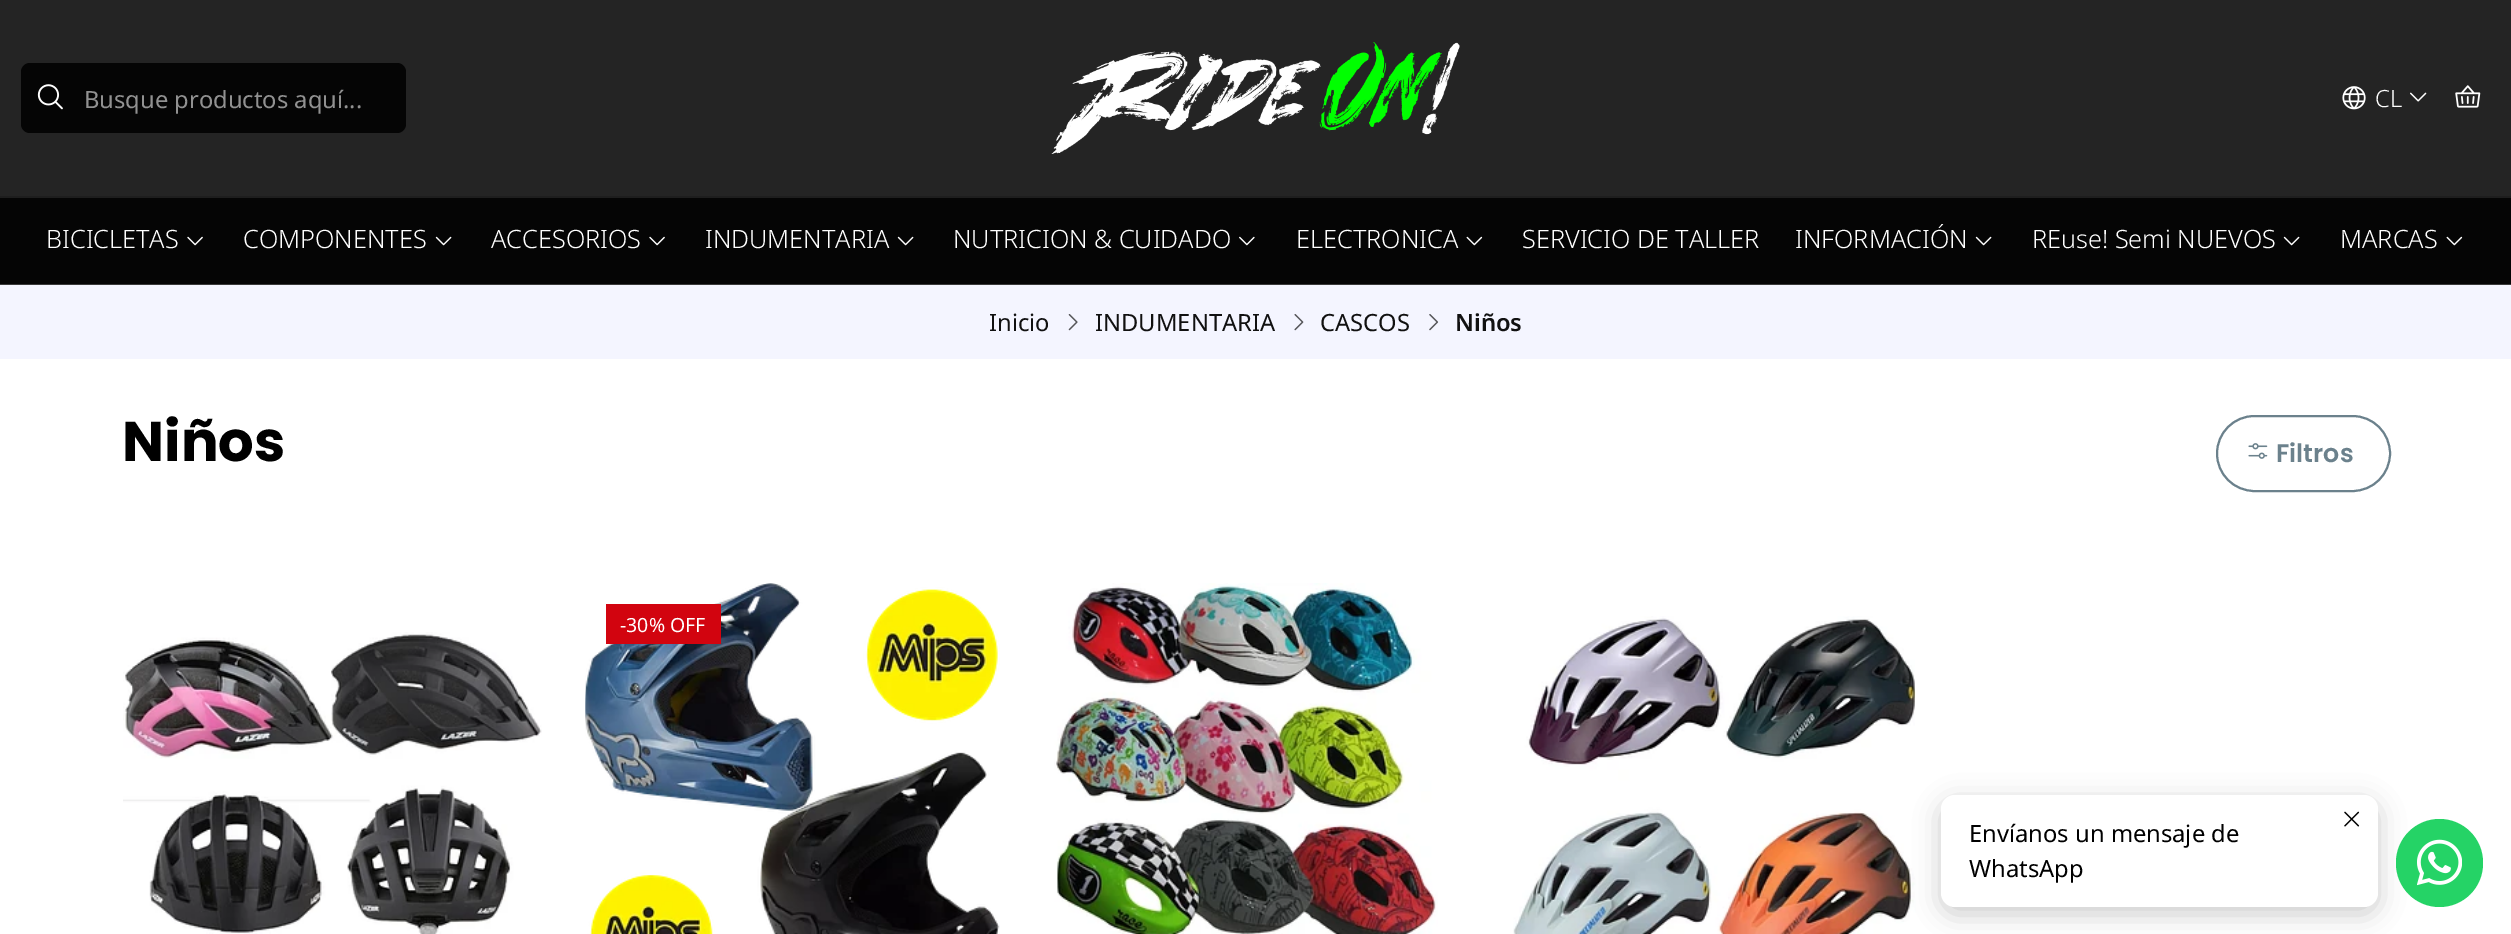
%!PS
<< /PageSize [2511 934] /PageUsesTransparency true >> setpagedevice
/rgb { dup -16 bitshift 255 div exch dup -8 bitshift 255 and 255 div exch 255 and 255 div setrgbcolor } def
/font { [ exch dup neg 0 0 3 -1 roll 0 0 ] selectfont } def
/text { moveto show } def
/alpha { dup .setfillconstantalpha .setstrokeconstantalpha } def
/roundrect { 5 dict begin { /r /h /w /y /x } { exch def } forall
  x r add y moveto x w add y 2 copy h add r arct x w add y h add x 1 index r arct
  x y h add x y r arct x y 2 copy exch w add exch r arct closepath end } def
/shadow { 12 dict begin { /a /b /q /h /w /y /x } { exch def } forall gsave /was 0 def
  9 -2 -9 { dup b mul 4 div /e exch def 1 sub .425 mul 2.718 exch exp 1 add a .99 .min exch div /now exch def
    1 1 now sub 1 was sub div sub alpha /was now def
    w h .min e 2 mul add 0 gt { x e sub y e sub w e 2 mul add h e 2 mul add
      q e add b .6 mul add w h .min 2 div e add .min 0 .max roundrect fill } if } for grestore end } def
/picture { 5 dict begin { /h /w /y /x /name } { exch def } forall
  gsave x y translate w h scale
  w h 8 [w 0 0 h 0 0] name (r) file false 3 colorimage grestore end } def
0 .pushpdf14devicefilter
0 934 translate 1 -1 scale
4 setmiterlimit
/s1 { /NotoSans-Regular 23.75 font 16#919191 rgb } def
/s2 { /NotoSans-Light 23.75 font 16#FFFFFF rgb } def
/s3 { /NotoSans-Light 25.25 font 16#FFFFFF rgb } def
/s4 { /NotoSans-Regular 23.75 font 16#111111 rgb } def
/s5 { /NotoSans-SemiBold 23.75 font 16#111111 rgb } def
/s6 { /Poppins-Bold 56 font 16#000000 rgb } def
/s7 { /Poppins-SemiBold 25.25 font 16#6B818C rgb } def
/s8 { /NotoSans-Regular 19.5 font 16#FFFFFF rgb } def
/s9 { /NotoSans-Regular 23.75 font 16#000000 rgb } def
16#FFFFFF rgb
0 0 2511 934 rectfill
16#242424 rgb
0 0 2511 196 rectfill
16#3A3A3A rgb
0 284 2511 1 rectfill
16#050505 rgb
21 63 385 70 9 roundrect fill
(pic1.raw) 37 84 26 26 picture
s1
(Busque productos aquí...) 84 108 text
(pic2.raw) 1051 42 409 112 picture
(pic3.raw) 2342 86 24 24 picture
s2
(CL) 2375 107 text
(pic4.raw) 2410 92 17 10 picture
(pic5.raw) 2455 85 26 23 picture
16#050505 rgb
0 198 2511 86 rectfill
16#1E1E1E rgb
0 196 2511 2 rectfill
s3
(BICICLETAS) 46 248 text
(pic6.raw) 187 236 16 10 picture
(COMPONENTES) 243 248 text
(pic7.raw) 435 236 17 10 picture
(ACCESORIOS) 491 248 text
(pic6.raw) 649 236 16 10 picture
(INDUMENTARIA) 705 248 text
(pic7.raw) 897 236 17 10 picture
(NUTRICION & CUIDADO) 953 248 text
(pic8.raw) 1239 236 16 10 picture
(ELECTRONICA) 1296 248 text
(pic9.raw) 1466 236 17 10 picture
(SERVICIO DE TALLER) 1522 248 text
(INFORMACIÓN) 1795 248 text
(pic7.raw) 1975 236 17 10 picture
(REuse! Semi NUEVOS) 2032 248 text
(pic7.raw) 2283 236 17 10 picture
(MARCAS) 2340 248 text
(pic9.raw) 2446 236 17 10 picture
16#F4F5FF rgb
0 285 2511 74 rectfill
s4
(Inicio) 989 331 text
(pic10.raw) 1068 314 10 17 picture
(INDUMENTARIA) 1095 331 text
(pic11.raw) 1294 314 10 17 picture
(CASCOS) 1320 331 text
(pic12.raw) 1429 314 10 17 picture
s5
(Niños) 1455 331 text
s6
(Niños) 122 461 text
16#6B818C rgb
2 setlinewidth
2217 416 173 75 37.5 roundrect stroke
(pic13.raw) 2248 443 20 16 picture
s7
(Filtros) 2276 462 text
(pic14.raw) 585 583 415 351 picture
16#D2040F rgb
606 604 115 40 rectfill
s8
(-30% OFF) 620 632 text
(pic15.raw) 1054 583 384 351 picture
(pic16.raw) 1513 616 403 318 picture
(pic17.raw) 123 632 419 302 picture
16#000000 rgb
1941 802 437 112 14 13 0.2 shadow
16#FFFFFF rgb
1941 795 437 112 14 roundrect fill
(pic18.raw) 2344 811 16 16 picture
s9
(Envíanos un mensaje de) 1969 842 text
(WhatsApp) 1969 877 text
16#25D366 rgb
2396 819 87 88 43.5 roundrect fill
(pic19.raw) 2417 839 45 47 picture
.poppdf14devicefilter showpage
